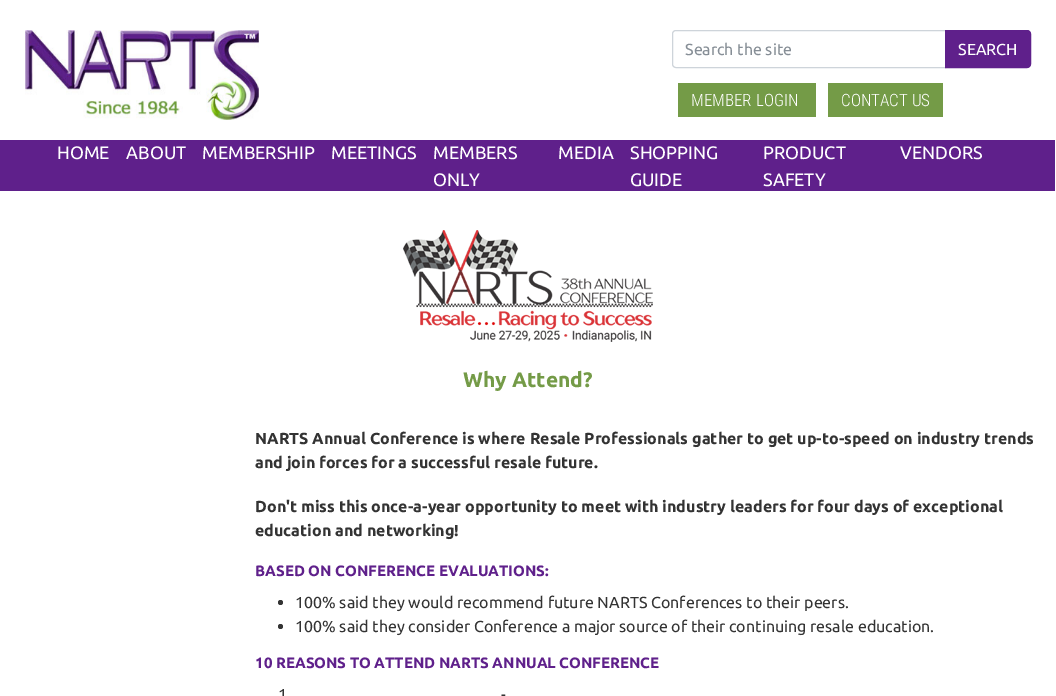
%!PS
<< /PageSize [1056 696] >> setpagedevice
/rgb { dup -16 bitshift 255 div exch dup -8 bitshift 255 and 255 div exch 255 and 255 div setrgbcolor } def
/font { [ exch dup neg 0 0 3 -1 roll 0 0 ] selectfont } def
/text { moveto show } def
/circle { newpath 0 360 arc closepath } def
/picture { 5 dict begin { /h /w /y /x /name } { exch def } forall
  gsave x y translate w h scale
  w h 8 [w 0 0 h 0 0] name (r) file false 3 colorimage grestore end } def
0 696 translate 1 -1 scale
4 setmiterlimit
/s1 { /Ubuntu-Regular 16 font 16#868E96 rgb } def
/s2 { /Ubuntu-Regular 16 font 16#FFFFFF rgb } def
/s3 { /RobotoCondensed-Light 17 font 16#FFFFFF rgb } def
/s4 { /Ubuntu-Regular 18 font 16#FFFFFF rgb } def
/s5 { /Ubuntu-Bold 21 font 16#749B47 rgb } def
/s6 { /Ubuntu-Bold 16 font 16#333333 rgb } def
/s7 { /Ubuntu-Bold 15 font 16#5F208B rgb } def
/s8 { /Ubuntu-Regular 16 font 16#333333 rgb } def
16#FFFFFF rgb
0 0 1056 696 rectfill
(pic1.raw) 25 30 234 90 picture
16#CED4DA rgb
676 30.5 moveto 945.5 30.5 lineto 945.5 67.5 lineto 676 67.5 lineto 674 67.5 672.5 66 672.5 64 curveto 672.5 34 lineto 672.5 32 674 30.5 676 30.5 curveto closepath stroke
s1
(Search the site) 685 55 text
16#5F208B rgb
945.5 30.5 moveto 1027 30.5 lineto 1029 30.5 1030.5 32 1030.5 34 curveto 1030.5 64 lineto 1030.5 66 1029 67.5 1027 67.5 curveto 945.5 67.5 lineto closepath gsave fill grestore
stroke
s2
(SEARCH) 958 55 text
16#749B47 rgb
678 83 138 34 rectfill
s3
(MEMBER LOGIN) 691 106 text
16#749B47 rgb
828 83 115 34 rectfill
s3
(CONTACT US) 841 106 text
16#5F208B rgb
0 140 1055 51 rectfill
s4
(HOME) 57 159 text
(ABOUT) 126 159 text
(MEMBERSHIP) 202 159 text
(MEETINGS) 331 159 text
(MEMBERS) 433 159 text
(ONLY) 433 186 text
(MEDIA) 558 159 text
(SHOPPING) 630 159 text
(GUIDE) 630 186 text
(PRODUCT) 763 159 text
(SAFETY) 763 186 text
(VENDORS) 900 159 text
(pic2.raw) 403 230 250 112 picture
s5
(Why Attend?) 463 387 text
s6
(NARTS Annual Conference is where Resale Professionals gather to get up-to-speed on industry trends) 255 444 text
(and join forces for a successful resale future.) 255 468 text
(Don't miss this once-a-year opportunity to meet with industry leaders for four days of exceptional) 255 512 text
(education and networking!) 255 536 text
s7
(BASED ON CONFERENCE EVALUATIONS:) 255 576 text
16#333333 rgb
280.5 602.5 2.5 circle fill
s8
(100% said they would recommend future NARTS Conferences to their peers.) 295 608 text
280.5 626.5 2.5 circle fill
(100% said they consider Conference a major source of their continuing resale education.) 295 632 text
s7
(10 REASONS TO ATTEND NARTS ANNUAL CONFERENCE) 255 668 text
s8
(1) 278 700 text
(-) 501 700 text
showpage
